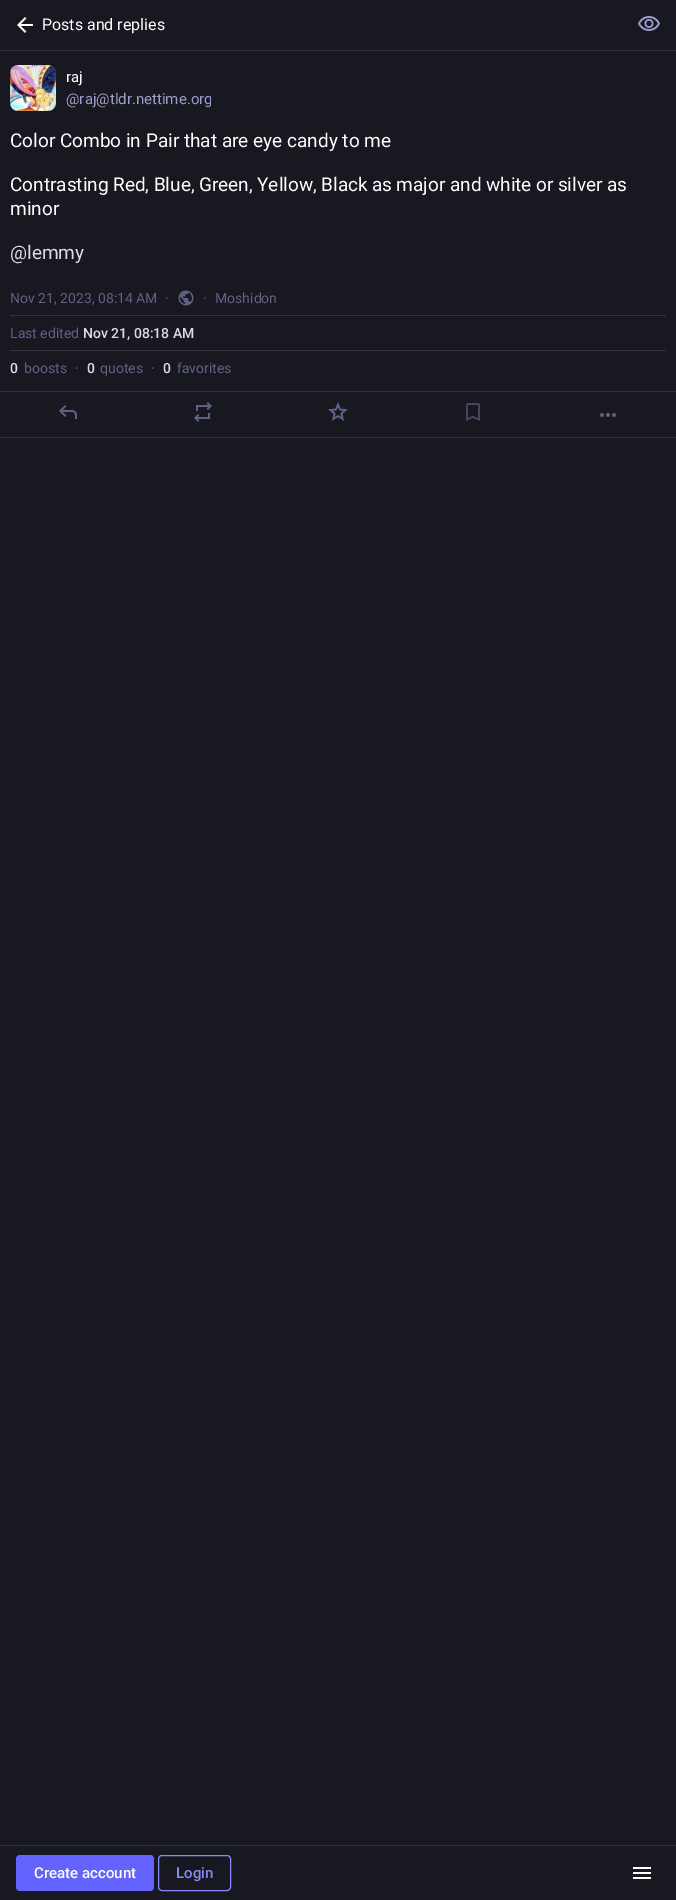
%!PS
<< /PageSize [676 1900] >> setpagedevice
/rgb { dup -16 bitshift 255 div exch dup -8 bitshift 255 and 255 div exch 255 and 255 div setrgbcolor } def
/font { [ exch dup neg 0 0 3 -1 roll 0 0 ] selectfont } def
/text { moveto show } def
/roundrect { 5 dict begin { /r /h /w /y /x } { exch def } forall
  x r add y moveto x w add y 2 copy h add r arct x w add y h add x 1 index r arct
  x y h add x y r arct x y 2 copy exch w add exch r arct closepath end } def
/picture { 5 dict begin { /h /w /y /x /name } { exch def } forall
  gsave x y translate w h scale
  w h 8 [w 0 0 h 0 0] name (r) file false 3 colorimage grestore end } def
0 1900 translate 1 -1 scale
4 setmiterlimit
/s1 { /Roboto-Regular 16 font 16#FFFFFF rgb } def
/s2 { /Roboto-Regular 15 font 16#FFFFFF rgb } def
/s3 { /Roboto-Regular 15 font 16#9C9CC9 rgb } def
/s4 { /Roboto-Regular 19 font 16#FFFFFF rgb } def
/s5 { /Roboto-Regular 19 font 16#DDD9E8 rgb } def
/s6 { /Roboto-Regular 14 font 16#606085 rgb } def
/s7 { /Roboto-Medium 14 font 16#DDD9E8 rgb } def
/s8 { /Roboto-Medium 15 font 16#FFFFFF rgb } def
/s9 { /Roboto-Medium 15 font 16#858AFA rgb } def
16#181821 rgb
0 0 676 1900 rectfill
16#313144 rgb
0 50 676 1 rectfill
(pic1.raw) 17 17 16 16 picture
s1
(Posts and replies) 42 30 text
(pic2.raw) 638 16 22 15 picture
16#20202C rgb
10 65 46 46 8 roundrect fill
(pic3.raw) 10 65 46 46 picture
s2
(raj) 66 82 text
gsave
66 88 145 22 rectclip
s3
(@raj@tldr.nettime.org) 66 104 text
grestore
s4
(Color Combo in Pair that are eye candy to me) 10 147 text
10 191 moveto -0.25 0 32 (Contrasting Red, Blue, Green, Yellow, Black as major and white or silver as) widthshow
(minor) 10 215 text
s5
(@lemmy) 10 259 text
16#313144 rgb
10 315 656 1 rectfill
s6
(Nov 21, 2023, 08:14 AM) 10 303 text
(·) 165 303 text
(pic4.raw) 178 290 16 16 picture
(·) 203 303 text
(Moshidon) 215 303 text
16#313144 rgb
10 350 656 1 rectfill
s6
(Last edited) 10 338 text
s7
(Nov 21, 08:18 AM) 83 338 text
(0) 10 373 text
s6
(boosts) 24 373 text
(·) 75 373 text
s7
(0) 87 373 text
s6
(quotes) 100 373 text
(·) 151 373 text
s7
(0) 163 373 text
s6
(favorites) 177 373 text
16#313144 rgb
0 391 676 1 rectfill
0 437 676 1 rectfill
(pic5.raw) 59 405 18 14 picture
(pic6.raw) 194 402 18 20 picture
(pic7.raw) 328 402 20 19 picture
(pic8.raw) 466 403 14 18 picture
(pic9.raw) 600 413 16 4 picture
0 1845 676 1 rectfill
16#6364FF rgb
16 1855 138 36 4 roundrect fill
s8
(Create account) 34 1878 text
16#858AFA rgb
158.5 1855.5 72 35 3.5 roundrect stroke
(Login) 176 1878 text
(pic10.raw) 633 1867 18 12 picture
showpage
